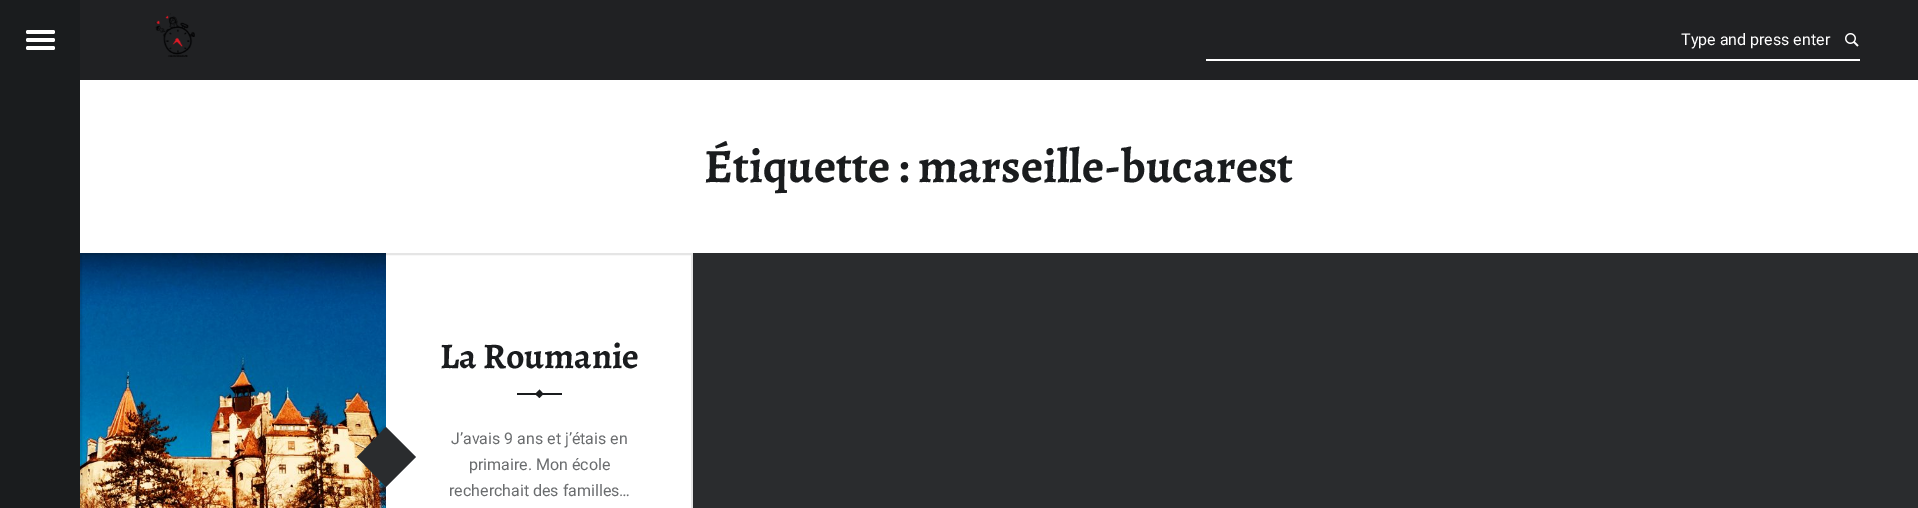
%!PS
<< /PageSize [1918 508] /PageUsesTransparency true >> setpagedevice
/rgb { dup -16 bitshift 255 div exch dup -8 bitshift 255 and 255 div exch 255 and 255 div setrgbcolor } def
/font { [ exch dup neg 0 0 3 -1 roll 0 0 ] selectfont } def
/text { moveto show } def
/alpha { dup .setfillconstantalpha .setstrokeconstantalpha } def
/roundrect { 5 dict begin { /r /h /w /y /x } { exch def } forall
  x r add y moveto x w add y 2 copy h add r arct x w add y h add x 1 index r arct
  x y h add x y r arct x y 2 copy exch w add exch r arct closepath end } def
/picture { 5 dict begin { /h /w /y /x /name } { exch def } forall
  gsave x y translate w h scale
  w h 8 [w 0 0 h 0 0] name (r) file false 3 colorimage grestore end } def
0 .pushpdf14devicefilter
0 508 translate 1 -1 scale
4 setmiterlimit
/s1 { /Roboto-Regular 16 font 16#FFFFFF rgb } def
/s2 { /Alegreya-Bold 48 font 16#1A1C1E rgb } def
/s3 { /Alegreya-Bold 36 font 16#1A1C1E rgb } def
/s4 { /Roboto-Regular 16 font 16#6A6C6E rgb } def
16#FFFFFF rgb
0 0 1918 508 rectfill
16#1A1C1E rgb
0 0 80 508 rectfill
16#FFFFFF rgb
26 30 29 4 2 roundrect fill
26 38 29 4 2 roundrect fill
26 46 29 4 2 roundrect fill
16#202123 rgb
80 0 1838 80 rectfill
(pic1.raw) 155 13 40 44 picture
16#FFFFFF rgb
1206 59 654 2 rectfill
s1
(Type and press enter) 1681 45 text
(pic2.raw) 1845 33 14 14 picture
s2
(Étiquette : marseille-bucarest) 704 182 text
16#2A2C2E rgb
693 253 1225 255 rectfill
(pic3.raw) 80 253 306 255 picture
386 427 moveto 416 457 lineto 386 487 lineto 357 457 lineto closepath fill
16#1A1C1E rgb
517 393 45 2 rectfill
539.5 389.5 moveto 543.5 394 lineto 539.5 398 lineto 535 394 lineto closepath fill
0.1 alpha
16#000000 rgb
2 setlinewidth
81 254 611 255 rectstroke
1 alpha
s3
(La Roumanie) 440 368 text
s4
(J’avais 9 ans et j’étais en) 451 444 text
(primaire. Mon école) 469 470 text
(recherchait des familles…) 449 496 text
.poppdf14devicefilter showpage
